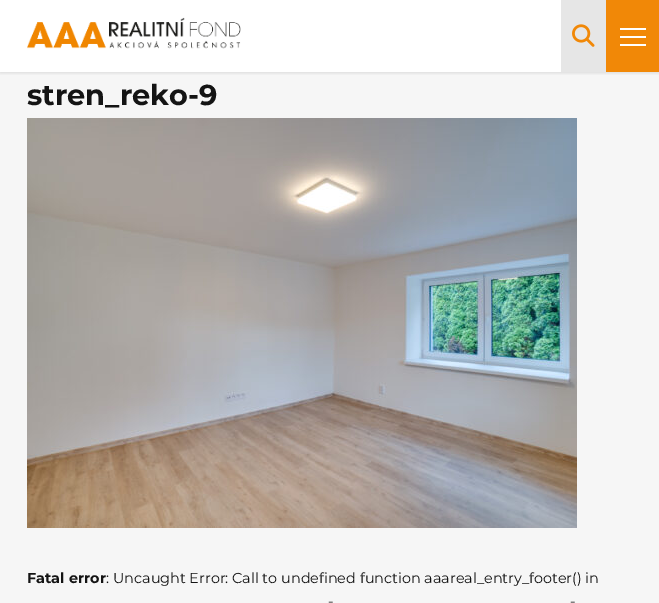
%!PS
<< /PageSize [659 603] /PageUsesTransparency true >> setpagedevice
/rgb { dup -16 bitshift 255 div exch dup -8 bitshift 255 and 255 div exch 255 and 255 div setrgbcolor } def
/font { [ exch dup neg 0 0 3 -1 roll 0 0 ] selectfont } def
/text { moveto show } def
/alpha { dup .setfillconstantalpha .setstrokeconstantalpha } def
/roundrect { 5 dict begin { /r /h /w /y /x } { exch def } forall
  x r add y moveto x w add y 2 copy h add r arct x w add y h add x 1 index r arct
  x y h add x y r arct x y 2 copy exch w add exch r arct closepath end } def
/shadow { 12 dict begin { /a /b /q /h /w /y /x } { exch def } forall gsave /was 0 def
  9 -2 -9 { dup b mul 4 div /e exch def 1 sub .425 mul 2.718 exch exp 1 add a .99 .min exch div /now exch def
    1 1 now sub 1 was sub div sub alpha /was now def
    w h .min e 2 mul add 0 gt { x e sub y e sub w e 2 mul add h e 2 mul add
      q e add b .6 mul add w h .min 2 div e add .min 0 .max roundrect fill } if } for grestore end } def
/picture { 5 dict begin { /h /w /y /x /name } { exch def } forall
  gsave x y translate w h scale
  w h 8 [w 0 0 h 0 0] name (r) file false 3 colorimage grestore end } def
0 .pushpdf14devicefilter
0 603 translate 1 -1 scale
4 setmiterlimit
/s1 { /Montserrat-Bold 28.75 font 16#141414 rgb } def
/s2 { /Montserrat-Bold 14.4 font 16#141414 rgb } def
/s3 { /Montserrat-Regular 14.4 font 16#141414 rgb } def
16#FFFFFF rgb
0 0 659 603 rectfill
16#F6F6F6 rgb
0 72 659 531 rectfill
gsave
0 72 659 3 rectclip
16#000000 rgb
0 0 659 72 0 2.5 0.15 shadow
grestore
(pic1.raw) 27 17 214 32 picture
16#E6E6E6 rgb
561 0 45 72 rectfill
(pic2.raw) 572 24 23 23 picture
16#F18807 rgb
606 0 53 72 rectfill
16#FFFFFF rgb
620 36 26 2 rectfill
620 28 26 2 rectfill
620 44 26 2 rectfill
s1
(stren_reko-9) 27 105 text
(pic3.raw) 27 118 550 410 picture
s2
(Fatal error) 27 583 text
s3
(: Uncaught Error: Call to undefined function aaareal_entry_footer\(\) in) 106 583 text
(-) 328 606 text
(-) 570 606 text
.poppdf14devicefilter showpage
